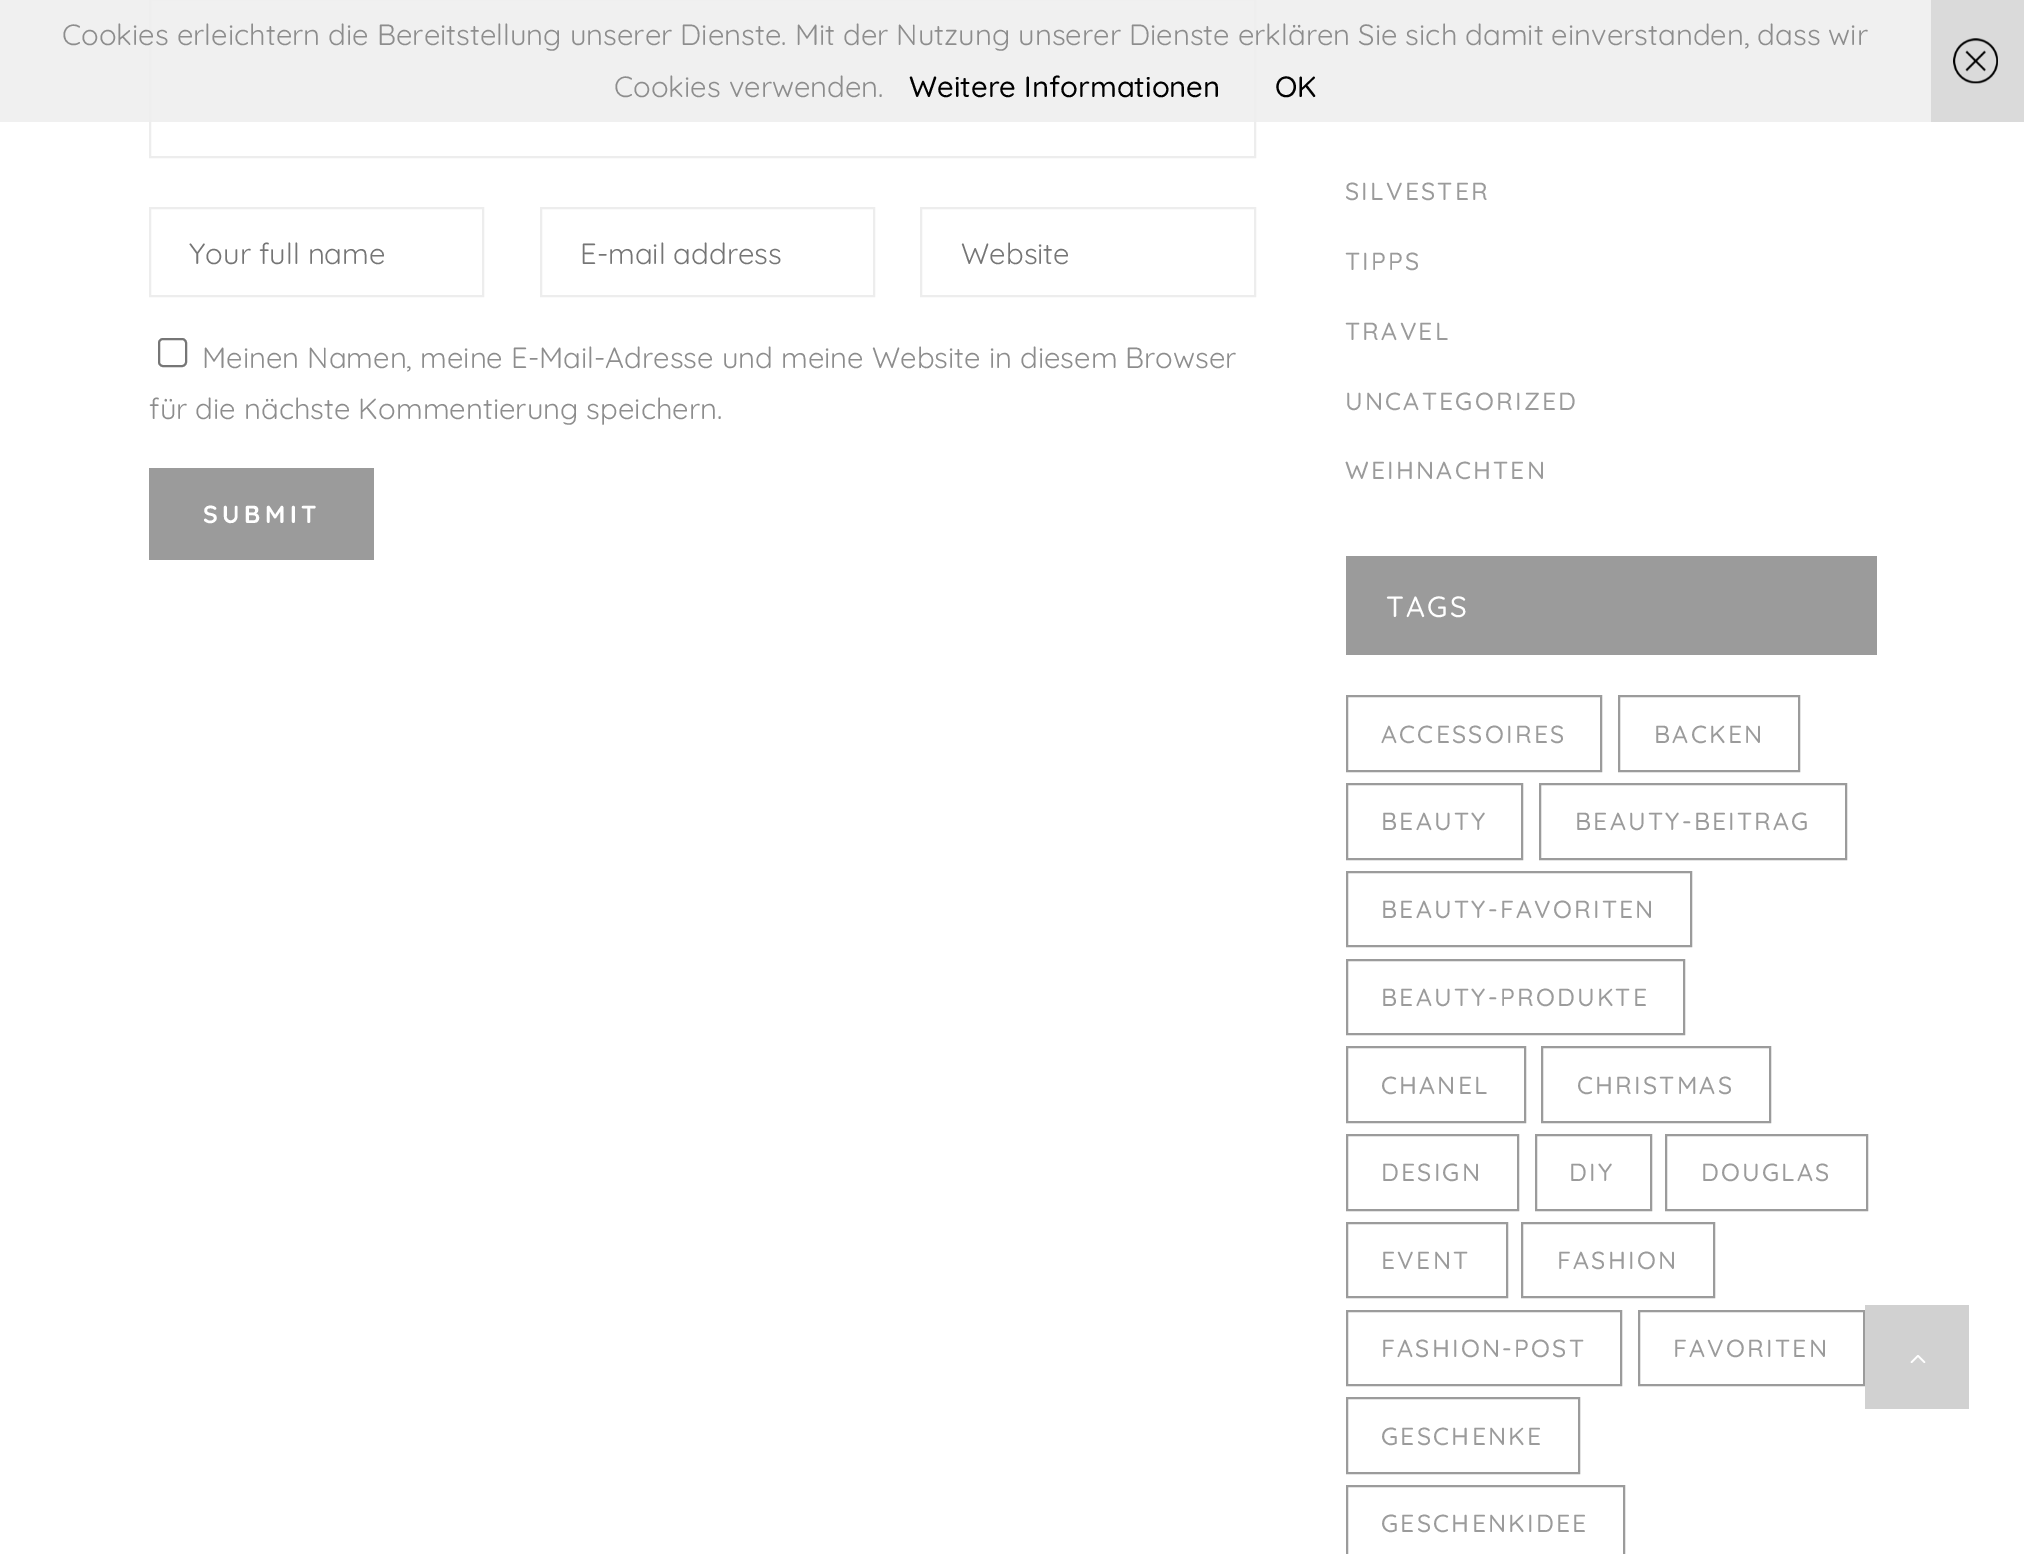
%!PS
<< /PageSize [2024 1554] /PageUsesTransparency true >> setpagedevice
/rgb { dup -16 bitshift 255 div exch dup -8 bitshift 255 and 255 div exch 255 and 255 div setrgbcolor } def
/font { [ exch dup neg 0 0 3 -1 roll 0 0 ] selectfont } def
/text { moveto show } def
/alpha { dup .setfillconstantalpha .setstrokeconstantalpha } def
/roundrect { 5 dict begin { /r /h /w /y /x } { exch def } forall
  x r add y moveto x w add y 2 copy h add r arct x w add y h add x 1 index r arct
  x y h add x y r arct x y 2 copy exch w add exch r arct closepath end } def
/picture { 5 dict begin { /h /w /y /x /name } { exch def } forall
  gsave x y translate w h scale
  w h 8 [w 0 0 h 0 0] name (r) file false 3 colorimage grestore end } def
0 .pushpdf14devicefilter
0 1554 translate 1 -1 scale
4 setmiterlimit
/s1 { /Quicksand-Regular 29.25 font 16#8D8D8D rgb } def
/s2 { /Quicksand-Medium 29.25 font 16#000000 rgb } def
/s3 { /Quicksand-Regular 29.25 font 16#757575 rgb } def
16#FFFFFF rgb
0 0 2024 1554 rectfill
16#EDEDED rgb
2 setlinewidth
150 -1 1105 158 rectstroke
0.9 alpha
16#EEEEEE rgb
0 0 1931 122 rectfill
1 alpha
s1
(Cookies erleichtern die Bereitstellung unserer Dienste. Mit der Nutzung unserer Dienste erklären Sie sich damit einverstanden, dass wir) 62 45 text
(Cookies verwenden.) 614 97 text
s2
(Weitere Informationen) 909 97 text
(OK) 1275 97 text
16#DADADA rgb
1931 0 93 122 rectfill
(pic1.raw) 1953 38 45 46 picture
16#EDEDED rgb
150 208 333 88 rectstroke
s3
(Your full name) 189 264 text
16#EDEDED rgb
541 208 333 88 rectstroke
s3
(E-mail address) 580 264 text
16#EDEDED rgb
921 208 334 88 rectstroke
s3
(Website) 961 264 text
16#767676 rgb
159 339 27 27 4 roundrect stroke
s1
(Meinen Namen, meine E-Mail-Adresse und meine Website in diesem Browser) 202 368 text
(für die nächste Kommentierung speichern.) 149 419 text
16#9B9B9B rgb
149 468 225 92 rectfill
/Quicksand-Bold 24.75 font
16#FFFFFF rgb
203 523 moveto 4.5 0 (SUBMIT) ashow
/Quicksand-Medium 24.75 font
16#9B9B9B rgb
1345 200 moveto 2.25 0 (SILVESTER) ashow
1345 270 moveto 2.25 0 (TIPPS) ashow
1345 340 moveto 2.25 0 (TRAVEL) ashow
1345 410 moveto 2.25 0 (UNCATEGORIZED) ashow
1345 479 moveto 2.25 0 (WEIHNACHTEN) ashow
1346 556 531 99 rectfill
/Quicksand-Medium 29.25 font
16#FFFFFF rgb
1386 617 moveto 2.25 0 (TAGS) ashow
16#9B9B9B rgb
1347 696 254 75 rectstroke
/Quicksand-Medium 24.75 font
1381 743 moveto 2.25 0 (ACCESSOIRES) ashow
1619 696 180 75 rectstroke
1654 743 moveto 2.25 0 (BACKEN) ashow
1347 784 175 75 rectstroke
1381 830 moveto 2.25 0 (BEAUTY) ashow
1540 784 306 75 rectstroke
1575 830 moveto 2.25 0 (BEAUTY-BEITRAG) ashow
1347 872 344 74 rectstroke
1381 918 moveto 2.25 0 (BEAUTY-FAVORITEN) ashow
1347 960 337 74 rectstroke
1381 1006 moveto 2.25 0 (BEAUTY-PRODUKTE) ashow
1347 1047 178 75 rectstroke
1381 1094 moveto 2.25 0 (CHANEL) ashow
1542 1047 228 75 rectstroke
1577 1094 moveto 2.25 0 (CHRISTMAS) ashow
1347 1135 171 75 rectstroke
1381 1181 moveto 2.25 0 (DESIGN) ashow
1536 1135 115 75 rectstroke
1569 1181 moveto 2.25 0 (DIY) ashow
1666 1135 201 75 rectstroke
1701 1181 moveto 2.25 0 (DOUGLAS) ashow
1347 1223 160 74 rectstroke
1381 1269 moveto 2.25 0 (EVENT) ashow
1522 1223 192 74 rectstroke
1557 1269 moveto 2.25 0 (FASHION) ashow
1347 1311 274 74 rectstroke
1381 1357 moveto 2.25 0 (FASHION-POST) ashow
1639 1311 225 74 rectstroke
1673 1357 moveto 2.25 0 (FAVORITEN) ashow
1347 1398 232 75 rectstroke
1381 1445 moveto 2.25 0 (GESCHENKE) ashow
1347 1486 277 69 rectstroke
1381 1532 moveto 2.25 0 (GESCHENKIDEE) ashow
16#D1D1D1 rgb
1865 1305 104 104 rectfill
(pic2.raw) 1910 1355 16 8 picture
.poppdf14devicefilter showpage
